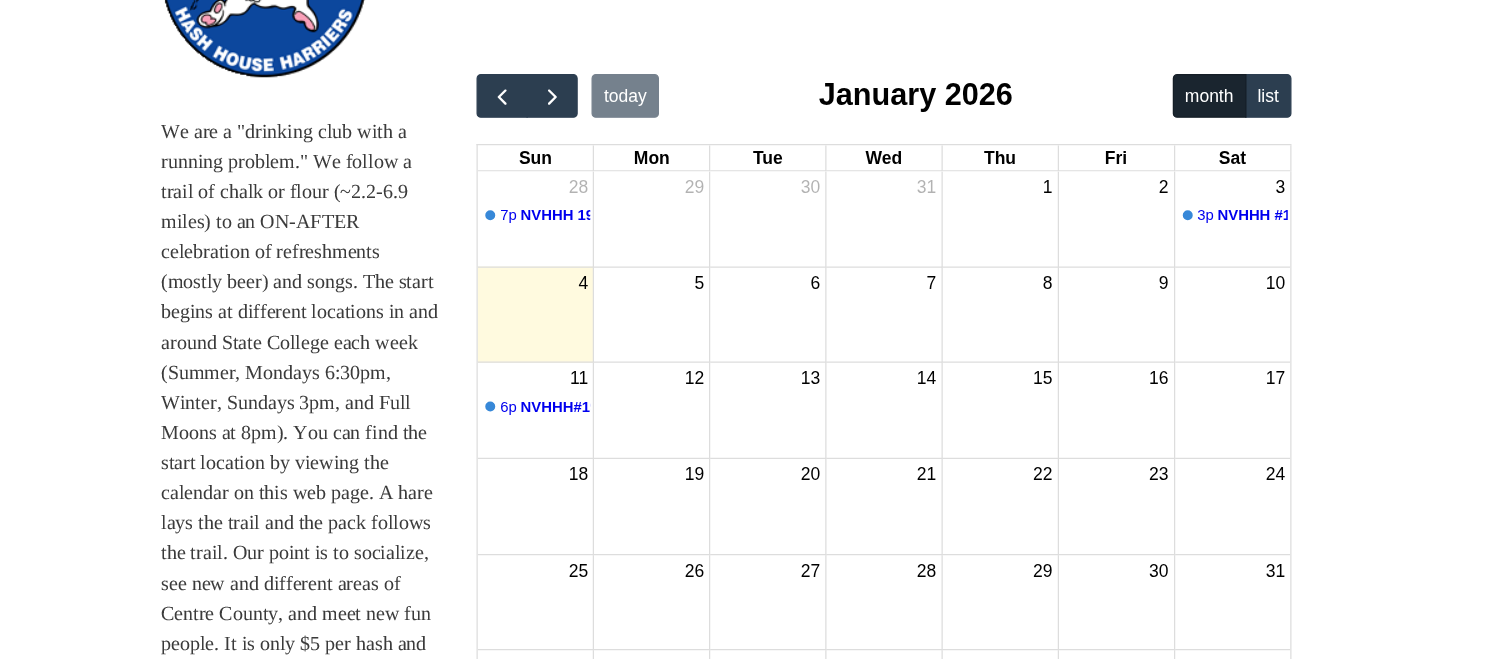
%!PS
<< /PageSize [1485 659] >> setpagedevice
/rgb { dup -16 bitshift 255 div exch dup -8 bitshift 255 and 255 div exch 255 and 255 div setrgbcolor } def
/font { [ exch dup neg 0 0 3 -1 roll 0 0 ] selectfont } def
/text { moveto show } def
/picture { 5 dict begin { /h /w /y /x /name } { exch def } forall
  gsave x y translate w h scale
  w h 8 [w 0 0 h 0 0] name (r) file false 3 colorimage grestore end } def
0 659 translate 1 -1 scale
4 setmiterlimit
/s1 { /LiberationSerif-Regular 20 font 16#3B3B3B rgb } def
16#FFFFFF rgb
0 0 1485 659 rectfill
(pic1.raw) 164 0 202 78 picture
s1
(We are a "drinking club with a) 161 138 text
(running problem." We follow a) 161 168 text
(trail of chalk or flour \(~2.2-6.9) 161 198 text
(miles\) to an ON-AFTER) 161 228 text
(celebration of refreshments) 161 258 text
(\(mostly beer\) and songs. The start) 161 288 text
(begins at different locations in and) 161 318 text
(around State College each week) 161 349 text
(\(Summer, Mondays 6:30pm,) 161 379 text
(Winter, Sundays 3pm, and Full) 161 409 text
(Moons at 8pm\). You can find the) 161 439 text
(start location by viewing the) 161 469 text
(calendar on this web page. A hare) 161 499 text
(lays the trail and the pack follows) 161 529 text
(the trail. Our point is to socialize,) 161 559 text
(see new and different areas of) 161 590 text
(Centre County, and meet new fun) 161 620 text
(people. It is only $5 per hash and) 161 650 text
(pic2.raw) 476 74 816 585 picture
showpage
